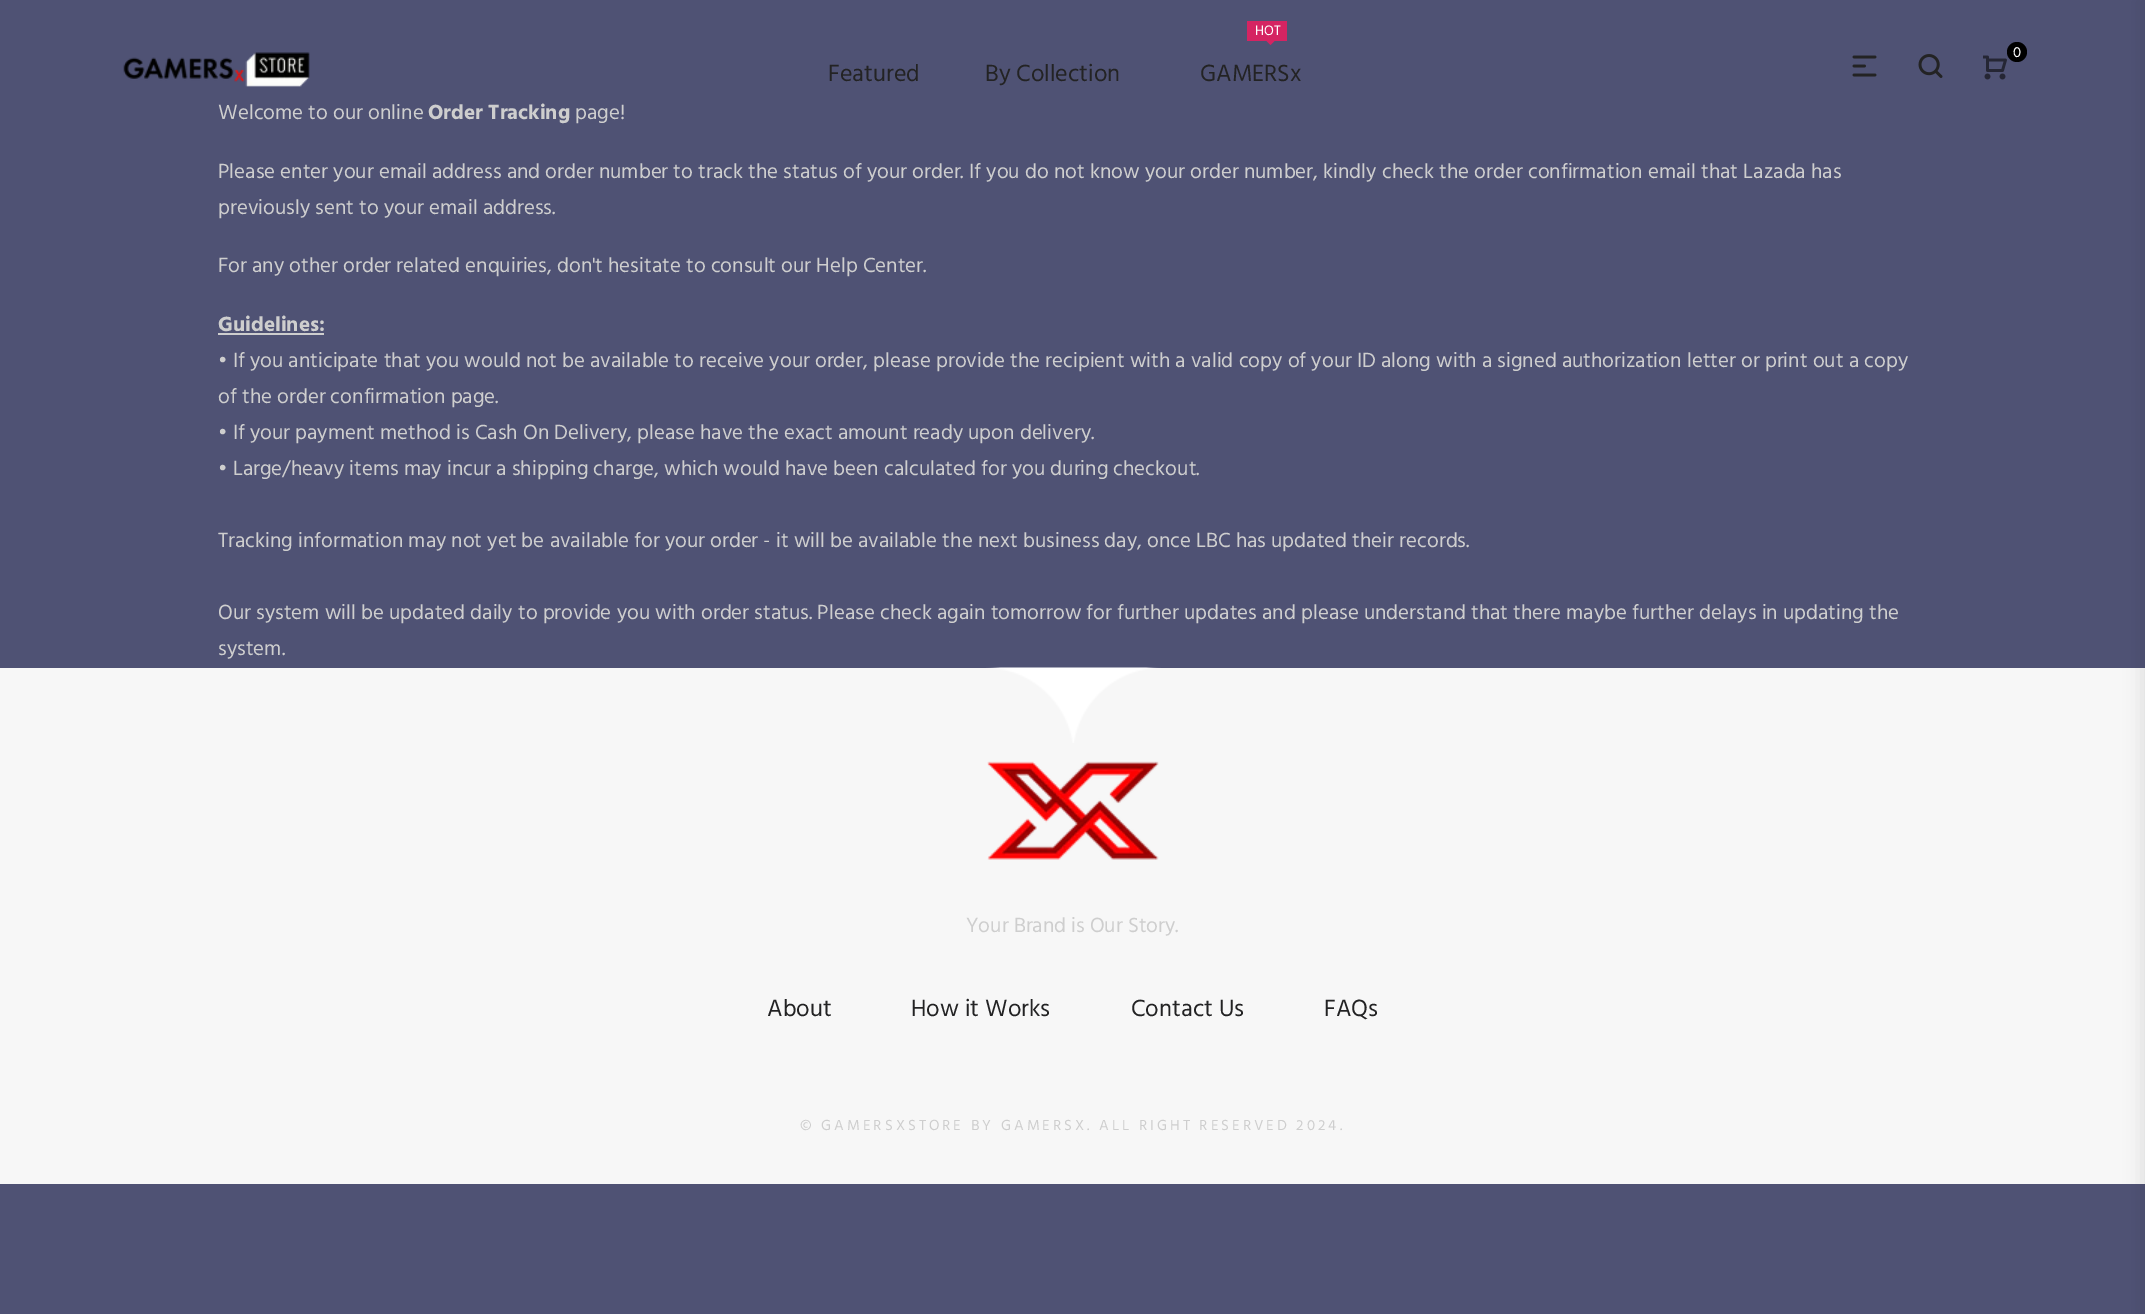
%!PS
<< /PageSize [2145 1314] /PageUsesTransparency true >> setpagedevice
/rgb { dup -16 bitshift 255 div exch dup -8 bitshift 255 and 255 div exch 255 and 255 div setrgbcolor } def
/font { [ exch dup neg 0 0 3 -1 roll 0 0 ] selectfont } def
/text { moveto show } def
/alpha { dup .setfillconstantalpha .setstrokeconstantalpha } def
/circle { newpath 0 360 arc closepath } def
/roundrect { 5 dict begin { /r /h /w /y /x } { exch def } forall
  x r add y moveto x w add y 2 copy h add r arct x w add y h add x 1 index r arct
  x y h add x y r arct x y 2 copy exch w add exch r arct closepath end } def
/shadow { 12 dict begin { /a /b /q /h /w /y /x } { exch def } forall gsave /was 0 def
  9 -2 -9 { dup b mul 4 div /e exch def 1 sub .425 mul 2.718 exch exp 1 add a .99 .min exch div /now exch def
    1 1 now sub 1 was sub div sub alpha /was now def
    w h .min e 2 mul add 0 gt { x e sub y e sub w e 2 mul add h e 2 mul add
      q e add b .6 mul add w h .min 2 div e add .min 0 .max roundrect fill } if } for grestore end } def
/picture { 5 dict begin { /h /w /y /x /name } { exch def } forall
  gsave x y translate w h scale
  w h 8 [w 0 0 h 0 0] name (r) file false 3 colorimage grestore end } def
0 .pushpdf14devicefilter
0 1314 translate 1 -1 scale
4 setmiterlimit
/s1 { /HindMadurai-Regular 24 font 16#232324 rgb } def
/s2 { /HindMadurai-Regular 14 font 16#FFFFFF rgb } def
/s3 { /HindMadurai-Regular 15 font 16#FFFFFF rgb } def
/s4 { /HindMadurai-Regular 21 font 16#CECECE rgb } def
/s5 { /HindMadurai-Bold 21 font 16#CECECE rgb } def
16#4F5274 rgb
0 0 2145 1314 rectfill
(pic1.raw) 123 52 187 35 picture
s1
(Featured) 828 81 text
(By Collection) 985 81 text
16#D52462 rgb
1247 21 40 20 rectfill
s2
(HOT) 1255 35 text
16#D52462 rgb
1266 40.5 moveto 1275 40.5 lineto 1270.5 45 lineto closepath fill
s1
(GAMERSx) 1200 81 text
16#000000 rgb
2017 52 10 circle fill
s3
(0) 2013 57 text
(pic2.raw) 1983 55 24 25 picture
16#F7F7F7 rgb
0 668 2145 516 rectfill
16#000000 rgb
2142 0 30 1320 0 9 0.1 shadow
(pic3.raw) 1852 55 25 22 picture
(pic4.raw) 1918 54 25 24 picture
s4
(Welcome to our online) 218 119 text
s5
(Order Tracking) 428 119 text
s4
(page!) 575 119 text
(Please enter your email address and order number to track the status of your order. If you do not know your order number, kindly check the order confirmation email that Lazada has) 218 178 text
(previously sent to your email address.) 218 214 text
(For any other order related enquiries, don't hesitate to consult our Help Center.) 218 272 text
s5
(Guidelines:) 218 331 text
218 333 106 2 rectfill
s4
(• If you anticipate that you would not be available to receive your order, please provide the recipient with a valid copy of your ID along with a signed authorization letter or print out a copy) 218 367 text
(of the order confirmation page.) 218 403 text
(• If your payment method is Cash On Delivery, please have the exact amount ready upon delivery.) 218 439 text
(• Large/heavy items may incur a shipping charge, which would have been calculated for you during checkout.) 218 475 text
(Tracking information may not yet be available for your order - it will be available the next business day, once LBC has updated their records.) 218 547 text
(Our system will be updated daily to provide you with order status. Please check again tomorrow for further updates and please understand that there maybe further delays in updating the) 218 619 text
(system.) 218 655 text
(pic5.raw) 986 667 175 76 picture
(pic6.raw) 987 761 172 99 picture
(Your Brand is Our Story.) 966 932 text
s1
(About) 767 1016 text
(How it Works) 911 1016 text
(Contact Us) 1131 1016 text
(FAQs) 1324 1016 text
/HindMadurai-Regular 15 font
16#CECECE rgb
800 1130 moveto 3 0 (© GAMERSXSTORE BY GAMERSX. ALL RIGHT RESERVED 2024.) ashow
.poppdf14devicefilter showpage
